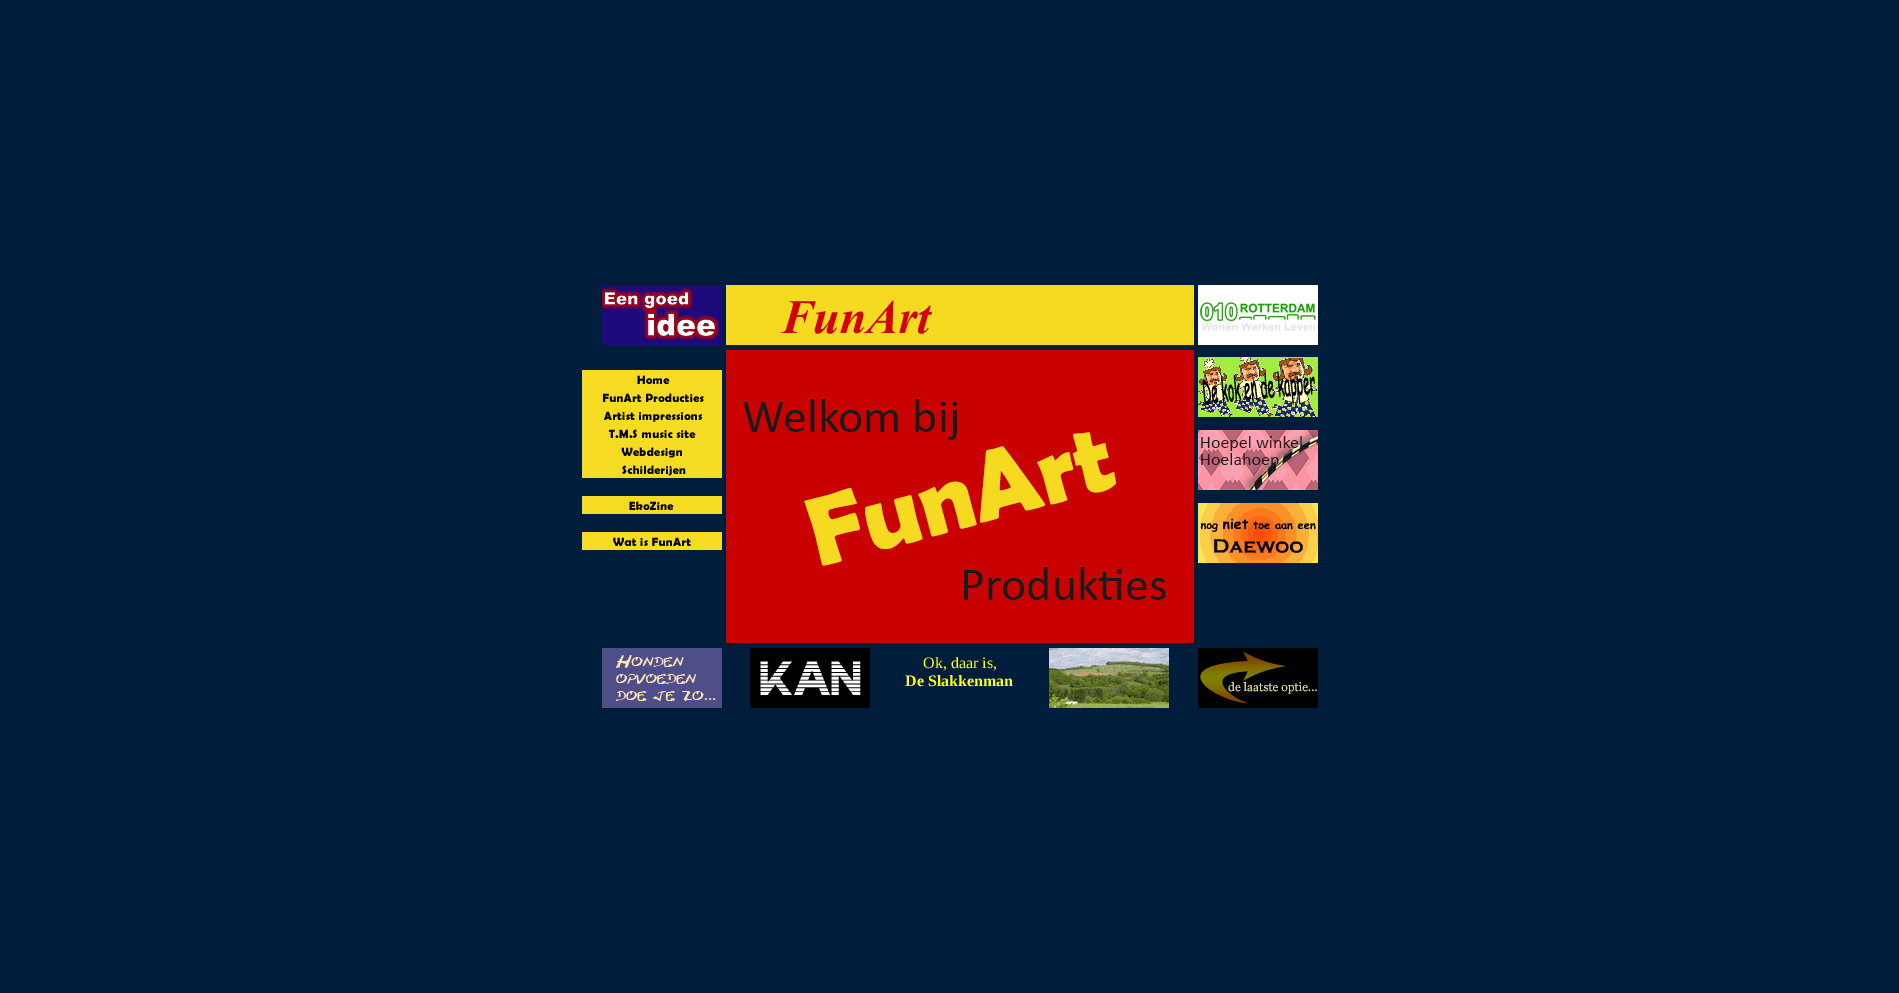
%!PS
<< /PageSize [1899 993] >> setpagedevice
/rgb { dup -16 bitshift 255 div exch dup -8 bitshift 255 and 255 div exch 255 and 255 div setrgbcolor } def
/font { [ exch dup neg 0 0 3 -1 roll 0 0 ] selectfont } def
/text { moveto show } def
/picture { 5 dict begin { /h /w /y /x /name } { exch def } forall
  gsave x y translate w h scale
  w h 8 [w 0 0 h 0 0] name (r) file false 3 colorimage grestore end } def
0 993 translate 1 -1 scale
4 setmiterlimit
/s1 { /LiberationSerif-Regular 16 font 16#FFFF00 rgb } def
/s2 { /LiberationSerif-Bold 16 font 16#FFFF00 rgb } def
16#001E3C rgb
0 0 1899 993 rectfill
(pic1.raw) 602 285 120 60 picture
(pic2.raw) 726 285 468 60 picture
(pic3.raw) 1198 285 120 60 picture
(pic4.raw) 582 370 140 18 picture
(pic5.raw) 582 388 140 18 picture
(pic6.raw) 582 406 140 18 picture
(pic7.raw) 582 424 140 18 picture
(pic8.raw) 582 442 140 18 picture
(pic9.raw) 582 460 140 18 picture
(pic10.raw) 582 496 140 18 picture
(pic11.raw) 582 532 140 18 picture
(pic12.raw) 726 350 468 293 picture
(pic13.raw) 1198 357 120 60 picture
(pic14.raw) 1198 430 120 60 picture
(pic15.raw) 1198 503 120 60 picture
(pic16.raw) 602 648 120 60 picture
(pic17.raw) 750 648 120 60 picture
s1
(Ok, daar is,) 923 668 text
s2
(De Slakkenman) 905 686 text
(pic18.raw) 1049 648 120 60 picture
(pic19.raw) 1198 648 120 60 picture
showpage
